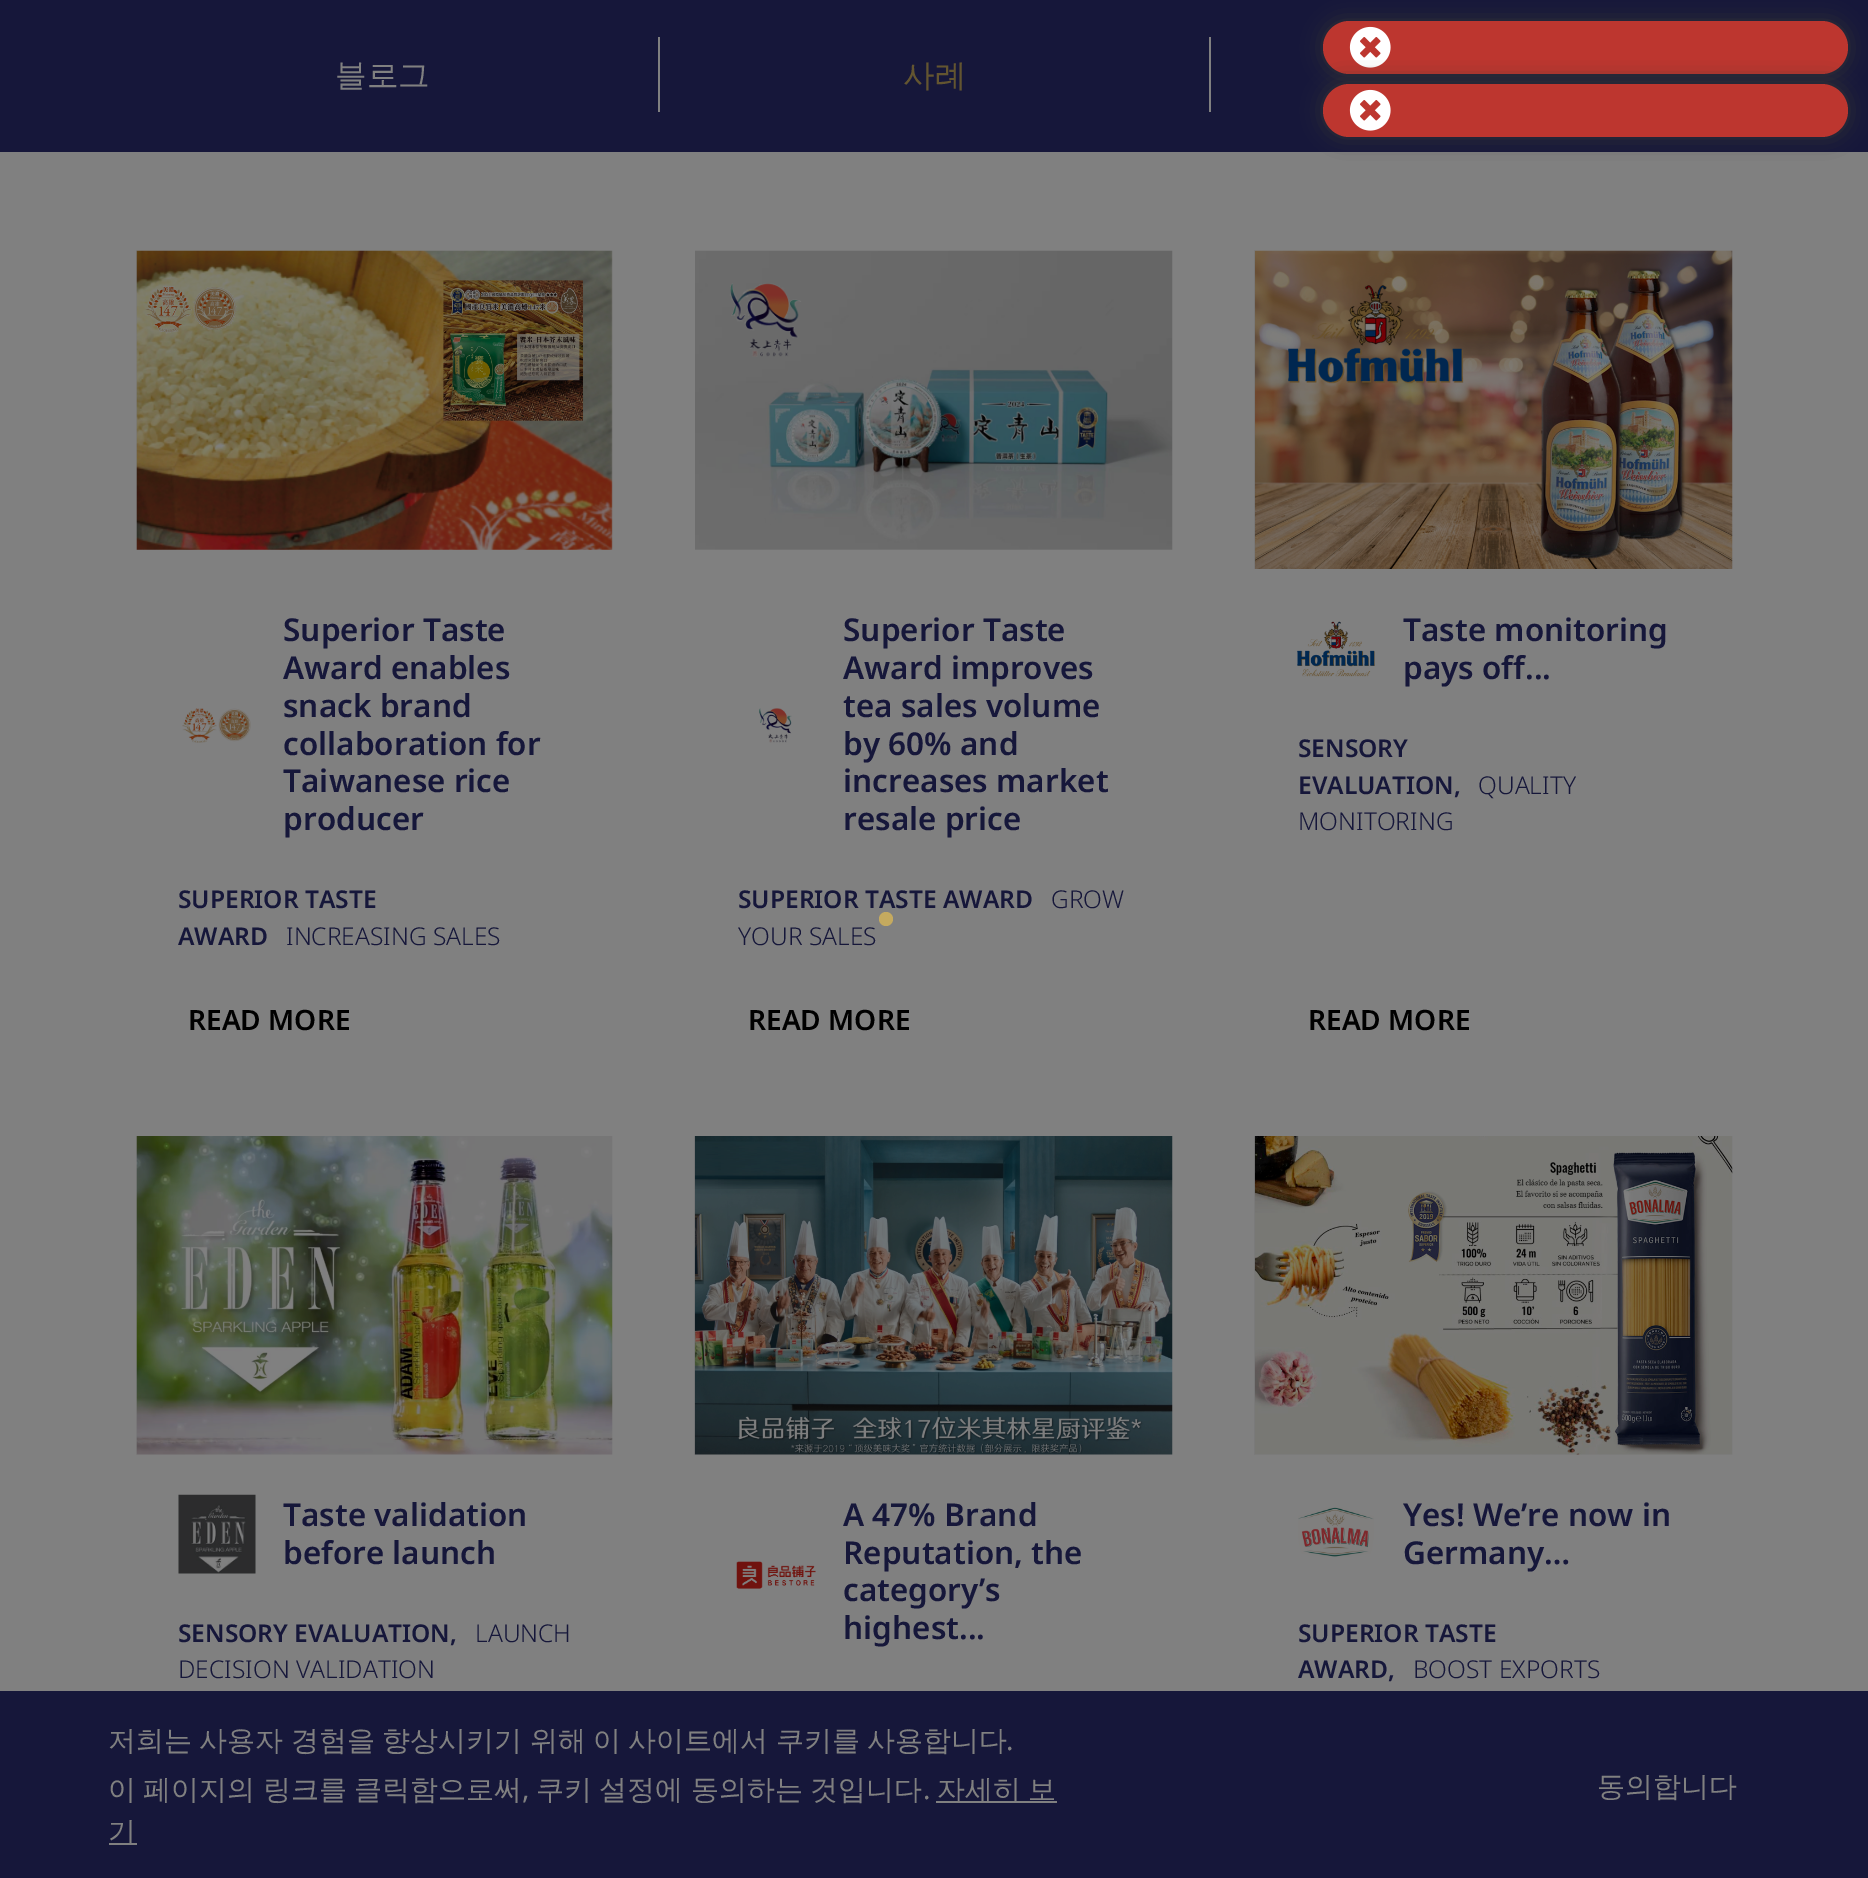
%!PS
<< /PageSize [1868 1878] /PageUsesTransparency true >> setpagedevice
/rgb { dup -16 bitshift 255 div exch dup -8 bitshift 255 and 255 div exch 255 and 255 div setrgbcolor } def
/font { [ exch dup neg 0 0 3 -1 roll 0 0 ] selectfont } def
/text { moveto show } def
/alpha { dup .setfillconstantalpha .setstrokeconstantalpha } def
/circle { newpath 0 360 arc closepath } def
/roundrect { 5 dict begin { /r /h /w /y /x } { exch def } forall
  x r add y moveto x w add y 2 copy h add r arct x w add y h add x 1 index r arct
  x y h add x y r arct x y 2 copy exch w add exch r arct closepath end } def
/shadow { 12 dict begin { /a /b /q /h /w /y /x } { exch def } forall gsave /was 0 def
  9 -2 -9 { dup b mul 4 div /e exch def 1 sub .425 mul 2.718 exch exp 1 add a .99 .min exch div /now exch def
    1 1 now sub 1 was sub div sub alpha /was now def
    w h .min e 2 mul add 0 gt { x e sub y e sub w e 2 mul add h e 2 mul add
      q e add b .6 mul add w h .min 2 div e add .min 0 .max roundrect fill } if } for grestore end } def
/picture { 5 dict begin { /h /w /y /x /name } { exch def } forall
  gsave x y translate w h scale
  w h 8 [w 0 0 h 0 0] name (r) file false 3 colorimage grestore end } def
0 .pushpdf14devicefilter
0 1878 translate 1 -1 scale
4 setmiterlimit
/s1 { /WenQuanYiZenHei-Medium 31.5 font 16#808080 rgb } def
/s2 { /WenQuanYiZenHei-Medium 31.5 font 16#635530 rgb } def
/s3 { /NotoSans-SemiBold 31.5 font 16#16173A rgb } def
/s4 { /NotoSans-SemiBold 24.5 font 16#16173A rgb } def
/s5 { /NotoSans-Light 24.5 font 16#16173A rgb } def
/s6 { /NotoSans-SemiBold 28 font 16#000000 rgb } def
/s7 { /NotoSans-Regular 28 font 16#808080 rgb } def
/s8 { /WenQuanYiZenHei-Medium 28 font 16#808080 rgb } def
16#808080 rgb
0 0 1868 1878 rectfill
16#16173A rgb
0 0 1868 152 rectfill
16#333333 rgb
1323 21 525 53 26.5 10.5 1 shadow
16#BD362F rgb
1323 21 525 53 26.5 roundrect fill
(pic1.raw) 1349 26 42 42 picture
16#333333 rgb
1323 84 525 53 26.5 10.5 1 shadow
16#BD362F rgb
1323 84 525 53 26.5 roundrect fill
(pic1.raw) 1349 89 42 42 picture
16#808080 rgb
658 37 2 75 rectfill
s1
(블로그) 335 86 text
1209 37 2 75 rectfill
s2
(사례) 903 86 text
(pic2.raw) 136 250 477 300 picture
(pic3.raw) 182 708 69 35 picture
s3
(Superior Taste) 283 641 text
(Award enables) 283 679 text
(snack brand) 283 717 text
(collaboration for) 283 755 text
(Taiwanese rice) 283 792 text
(producer) 283 830 text
s4
(SUPERIOR TASTE) 178 908 text
(AWARD) 178 945 text
s5
(INCREASING SALES) 286 945 text
s6
(READ MORE) 188 1030 text
(pic4.raw) 695 250 478 300 picture
(pic5.raw) 759 708 33 35 picture
s3
(Superior Taste) 843 641 text
(Award improves) 843 679 text
(tea sales volume) 843 717 text
(by 60% and) 843 755 text
(increases market) 843 792 text
(resale price) 843 830 text
s4
(SUPERIOR TASTE AWARD) 738 908 text
s5
(GROW) 1051 908 text
(YOUR SALES) 738 945 text
s6
(READ MORE) 748 1030 text
(pic6.raw) 1254 250 479 319 picture
(pic7.raw) 1297 621 78 56 picture
s3
(Taste monitoring) 1403 641 text
(pays off...) 1403 679 text
s4
(SENSORY) 1298 757 text
(EVALUATION,) 1298 794 text
s5
(QUALITY) 1478 794 text
(MONITORING) 1298 830 text
s6
(READ MORE) 1308 1030 text
(pic8.raw) 136 1136 477 319 picture
(pic9.raw) 178 1494 78 80 picture
s3
(Taste validation) 283 1526 text
(before launch) 283 1564 text
s4
(SENSORY EVALUATION,) 178 1642 text
s5
(LAUNCH) 475 1642 text
(DECISION VALIDATION) 178 1678 text
(pic10.raw) 694 1136 479 319 picture
(pic11.raw) 736 1561 80 28 picture
s3
(A 47% Brand) 843 1526 text
(Reputation, the) 843 1564 text
(category’s) 843 1601 text
(highest...) 843 1639 text
(pic12.raw) 1254 1136 479 319 picture
(pic13.raw) 1298 1507 76 50 picture
(Yes! We’re now in) 1403 1526 text
(Germany…) 1403 1564 text
s4
(SUPERIOR TASTE) 1298 1642 text
(AWARD,) 1298 1678 text
s5
(BOOST EXPORTS) 1413 1678 text
16#C5AA5F rgb
886 919 7 circle fill
16#16173A rgb
0 1691 1868 187 rectfill
/WenQuanYiZenHei-Medium 28 font
16#808080 rgb
108 1750 moveto -1 0 32 (저희는 사용자 경험을 향상시키기 위해 이 사이트에서 쿠키를 사용합니다) widthshow
s7
(.) 1006 1750 text
/WenQuanYiZenHei-Medium 28 font
108 1799 moveto -1 0 32 (이 페이지의 링크를 클릭함으로써) widthshow
s7
(,) 522 1799 text
/WenQuanYiZenHei-Medium 28 font
536 1799 moveto -1 0 32 (쿠키 설정에) widthshow
691 1799 moveto -1 0 32 (동의하는 것입니다) widthshow
s7
(.) 923 1799 text
936 1801 121 2 rectfill
/WenQuanYiZenHei-Medium 28 font
937 1799 moveto -1 0 32 (자세히 보) widthshow
109 1843 28 2 rectfill
(기) 108 1841 text
(동의합니다) 1597 1796 text
.poppdf14devicefilter showpage
